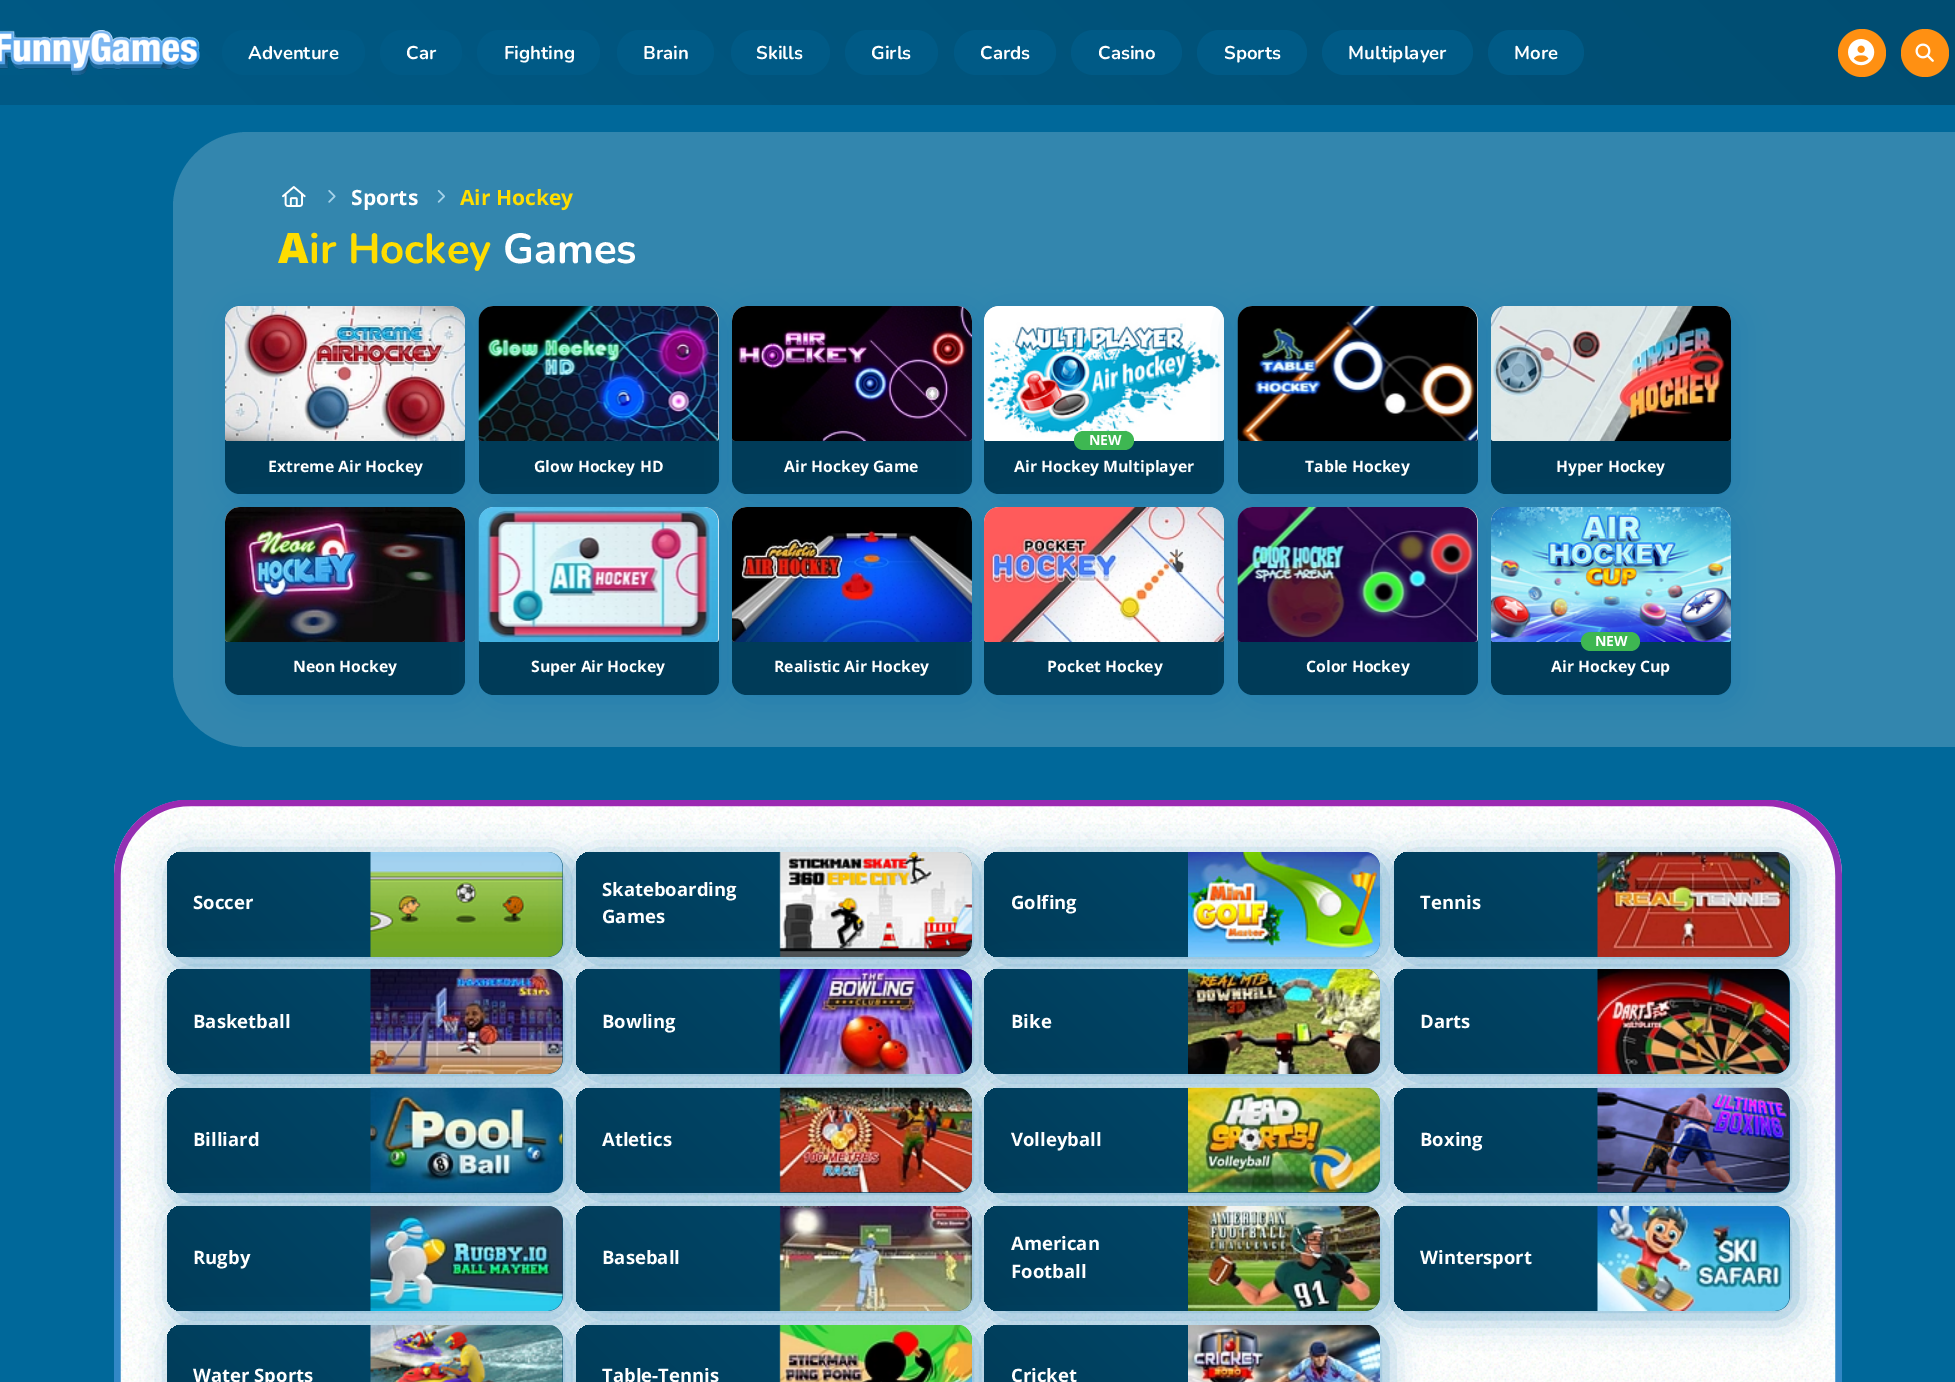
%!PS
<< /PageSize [1955 1382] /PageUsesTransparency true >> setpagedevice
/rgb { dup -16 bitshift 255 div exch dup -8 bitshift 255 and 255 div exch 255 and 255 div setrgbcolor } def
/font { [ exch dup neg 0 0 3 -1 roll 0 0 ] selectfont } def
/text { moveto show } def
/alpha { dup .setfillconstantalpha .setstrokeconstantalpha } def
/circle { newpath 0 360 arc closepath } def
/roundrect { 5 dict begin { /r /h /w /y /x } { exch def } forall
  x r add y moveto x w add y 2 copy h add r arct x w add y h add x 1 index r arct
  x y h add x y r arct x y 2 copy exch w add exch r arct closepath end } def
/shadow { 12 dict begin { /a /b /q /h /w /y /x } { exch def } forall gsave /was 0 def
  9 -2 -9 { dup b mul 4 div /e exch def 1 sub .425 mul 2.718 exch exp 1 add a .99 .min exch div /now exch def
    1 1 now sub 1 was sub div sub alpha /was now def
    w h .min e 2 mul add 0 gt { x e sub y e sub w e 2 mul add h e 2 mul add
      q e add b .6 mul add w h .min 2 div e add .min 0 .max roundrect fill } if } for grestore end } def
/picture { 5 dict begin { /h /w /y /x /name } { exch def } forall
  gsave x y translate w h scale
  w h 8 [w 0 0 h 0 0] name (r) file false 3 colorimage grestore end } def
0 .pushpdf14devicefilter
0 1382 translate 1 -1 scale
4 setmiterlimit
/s1 { /Nunito-Bold 18.5 font 16#FFFFFF rgb } def
/s2 { /OpenSans-Bold 21 font 16#FFFFFF rgb } def
/s3 { /OpenSans-Bold 21 font 16#FFDD00 rgb } def
/s4 { /NotoSans-Black 42 font 16#FFDD00 rgb } def
/s5 { /Nunito-Bold 42 font 16#FFDD00 rgb } def
/s6 { /Nunito-Bold 42 font 16#FFFFFF rgb } def
/s7 { /OpenSans-Bold 15.75 font 16#FFFFFF rgb } def
/s8 { /OpenSans-Bold 14 font 16#FFFFFF rgb } def
/s9 { /OpenSans-Bold 18.5 font 16#FFFFFF rgb } def
16#00689A rgb
0 0 1955 1382 rectfill
gsave 0 0 moveto 1955 0 lineto 1955 105 lineto 0 105 lineto closepath clip newpath
<< /ShadingType 2 /ColorSpace /DeviceRGB /Coords [463 568 1493 -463] /Extend [true true] /Function << /FunctionType 2 /Domain [0 1] /C0 [0 0.353 0.525] /C1 [0 0.302 0.447] /N 1 >> >> shfill grestore
(pic1.raw) 0 30 200 45 picture
16#005A86 rgb
222 30 143 45 22.5 roundrect fill
s1
(Adventure) 248 59 text
16#005A86 rgb
380 30 82 45 22.5 roundrect fill
s1
(Car) 406 59 text
16#005A86 rgb
477 30 123 45 22.5 roundrect fill
s1
(Fighting) 504 59 text
16#005A86 rgb
617 30 97 45 22.5 roundrect fill
s1
(Brain) 643 59 text
16#005A86 rgb
731 30 99 45 22.5 roundrect fill
s1
(Skills) 756 59 text
16#005A86 rgb
845 30 93 45 22.5 roundrect fill
s1
(Girls) 871 59 text
16#005A86 rgb
954 30 102 45 22.5 roundrect fill
s1
(Cards) 980 59 text
16#005A86 rgb
1071 30 111 45 22.5 roundrect fill
s1
(Casino) 1098 59 text
16#005A86 rgb
1197 30 110 45 22.5 roundrect fill
s1
(Sports) 1224 59 text
16#005A86 rgb
1322 30 151 45 22.5 roundrect fill
s1
(Multiplayer) 1348 59 text
16#005A86 rgb
1488 30 96 45 22.5 roundrect fill
s1
(More) 1514 59 text
16#FF9012 rgb
1862 53 24 circle fill
(pic2.raw) 1848 39 27 27 picture
1925 53 24 circle fill
(pic3.raw) 1915 43 19 19 picture
16#3386AE rgb
248 132 moveto 1784 132 lineto 1784 747 lineto 248 747 lineto 206.5 747 173 713.5 173 672 curveto 173 207 lineto 173 165.5 206.5 132 248 132 curveto closepath fill
(pic4.raw) 282 186 24 21 picture
(pic5.raw) 328 190 8 13 picture
s2
(Sports) 351 205 text
(pic6.raw) 437 190 8 13 picture
s3
(Air Hockey) 460 205 text
16#3386AE rgb
1784 132 171 615 rectfill
s4
(A) 278 263 text
s5
(ir Hockey) 309 263 text
s6
(Games) 503 263 text
16#1276AF rgb
231 312 240 188 15 15 0.5 shadow
16#003B58 rgb
225 306 240 188 15 roundrect fill
16#FAFAFA rgb
240 306 moveto 450 306 lineto 458.5 306 465 312.5 465 321 curveto 465 438 lineto 465 439.5 463.5 441 462 441 curveto 228 441 lineto 226.5 441 225 439.5 225 438 curveto 225 321 lineto 225 312.5 231.5 306 240 306 curveto closepath fill
(pic7.raw) 225 306 240 135 picture
s7
(Extreme Air Hockey) 268 472 text
16#1276AF rgb
485 312 240 188 15 15 0.5 shadow
16#003B58 rgb
479 306 240 188 15 roundrect fill
16#FAFAFA rgb
494 306 moveto 704 306 lineto 712.5 306 719 312.5 719 321 curveto 719 438 lineto 719 439.5 717.5 441 716 441 curveto 482 441 lineto 480.5 441 479 439.5 479 438 curveto 479 321 lineto 479 312.5 485.5 306 494 306 curveto closepath fill
(pic8.raw) 478 306 241 135 picture
s7
(Glow Hockey HD) 534 472 text
16#1276AF rgb
738 312 240 188 15 15 0.5 shadow
16#003B58 rgb
732 306 240 188 15 roundrect fill
16#FAFAFA rgb
747 306 moveto 957 306 lineto 965.5 306 972 312.5 972 321 curveto 972 438 lineto 972 439.5 970.5 441 969 441 curveto 735 441 lineto 733.5 441 732 439.5 732 438 curveto 732 321 lineto 732 312.5 738.5 306 747 306 curveto closepath fill
(pic9.raw) 732 306 240 135 picture
s7
(Air Hockey Game) 784 472 text
16#1276AF rgb
990 312 240 188 15 15 0.5 shadow
16#003B58 rgb
984 306 240 188 15 roundrect fill
16#FAFAFA rgb
999 306 moveto 1209 306 lineto 1217.5 306 1224 312.5 1224 321 curveto 1224 438 lineto 1224 439.5 1222.5 441 1221 441 curveto 987 441 lineto 985.5 441 984 439.5 984 438 curveto 984 321 lineto 984 312.5 990.5 306 999 306 curveto closepath fill
(pic10.raw) 984 306 240 135 picture
16#3EB752 rgb
1074 431 60 19 9.5 roundrect fill
s8
(NEW) 1089 445 text
s7
(Air Hockey Multiplayer) 1014 472 text
16#1276AF rgb
1244 312 240 188 15 15 0.5 shadow
16#003B58 rgb
1238 306 240 188 15 roundrect fill
16#FAFAFA rgb
1253 306 moveto 1463 306 lineto 1471.5 306 1478 312.5 1478 321 curveto 1478 438 lineto 1478 439.5 1476.5 441 1475 441 curveto 1241 441 lineto 1239.5 441 1238 439.5 1238 438 curveto 1238 321 lineto 1238 312.5 1244.5 306 1253 306 curveto closepath fill
(pic11.raw) 1237 306 241 135 picture
s7
(Table Hockey) 1305 472 text
16#1276AF rgb
1497 312 240 188 15 15 0.5 shadow
16#003B58 rgb
1491 306 240 188 15 roundrect fill
16#FAFAFA rgb
1506 306 moveto 1716 306 lineto 1724.5 306 1731 312.5 1731 321 curveto 1731 438 lineto 1731 439.5 1729.5 441 1728 441 curveto 1494 441 lineto 1492.5 441 1491 439.5 1491 438 curveto 1491 321 lineto 1491 312.5 1497.5 306 1506 306 curveto closepath fill
(pic12.raw) 1491 306 240 135 picture
s7
(Hyper Hockey) 1556 472 text
16#1276AF rgb
231 513 240 188 15 15 0.5 shadow
16#003B58 rgb
225 507 240 188 15 roundrect fill
16#FAFAFA rgb
240 507 moveto 450 507 lineto 458.5 507 465 513.5 465 522 curveto 465 639 lineto 465 640.5 463.5 642 462 642 curveto 228 642 lineto 226.5 642 225 640.5 225 639 curveto 225 522 lineto 225 513.5 231.5 507 240 507 curveto closepath fill
(pic13.raw) 225 507 240 135 picture
s7
(Neon Hockey) 293 672 text
16#1276AF rgb
485 513 240 188 15 15 0.5 shadow
16#003B58 rgb
479 507 240 188 15 roundrect fill
16#FAFAFA rgb
494 507 moveto 704 507 lineto 712.5 507 719 513.5 719 522 curveto 719 639 lineto 719 640.5 717.5 642 716 642 curveto 482 642 lineto 480.5 642 479 640.5 479 639 curveto 479 522 lineto 479 513.5 485.5 507 494 507 curveto closepath fill
(pic14.raw) 478 507 241 135 picture
s7
(Super Air Hockey) 531 672 text
16#1276AF rgb
738 513 240 188 15 15 0.5 shadow
16#003B58 rgb
732 507 240 188 15 roundrect fill
16#FAFAFA rgb
747 507 moveto 957 507 lineto 965.5 507 972 513.5 972 522 curveto 972 639 lineto 972 640.5 970.5 642 969 642 curveto 735 642 lineto 733.5 642 732 640.5 732 639 curveto 732 522 lineto 732 513.5 738.5 507 747 507 curveto closepath fill
(pic15.raw) 732 507 240 135 picture
s7
(Realistic Air Hockey) 774 672 text
16#1276AF rgb
990 513 240 188 15 15 0.5 shadow
16#003B58 rgb
984 507 240 188 15 roundrect fill
16#FAFAFA rgb
999 507 moveto 1209 507 lineto 1217.5 507 1224 513.5 1224 522 curveto 1224 639 lineto 1224 640.5 1222.5 642 1221 642 curveto 987 642 lineto 985.5 642 984 640.5 984 639 curveto 984 522 lineto 984 513.5 990.5 507 999 507 curveto closepath fill
(pic16.raw) 984 507 240 135 picture
s7
(Pocket Hockey) 1047 672 text
16#1276AF rgb
1244 513 240 188 15 15 0.5 shadow
16#003B58 rgb
1238 507 240 188 15 roundrect fill
16#FAFAFA rgb
1253 507 moveto 1463 507 lineto 1471.5 507 1478 513.5 1478 522 curveto 1478 639 lineto 1478 640.5 1476.5 642 1475 642 curveto 1241 642 lineto 1239.5 642 1238 640.5 1238 639 curveto 1238 522 lineto 1238 513.5 1244.5 507 1253 507 curveto closepath fill
(pic17.raw) 1237 507 241 135 picture
s7
(Color Hockey) 1306 672 text
16#1276AF rgb
1497 513 240 188 15 15 0.5 shadow
16#003B58 rgb
1491 507 240 188 15 roundrect fill
16#FAFAFA rgb
1506 507 moveto 1716 507 lineto 1724.5 507 1731 513.5 1731 522 curveto 1731 639 lineto 1731 640.5 1729.5 642 1728 642 curveto 1494 642 lineto 1492.5 642 1491 640.5 1491 639 curveto 1491 522 lineto 1491 513.5 1497.5 507 1506 507 curveto closepath fill
(pic18.raw) 1491 507 240 135 picture
16#3EB752 rgb
1581 632 59 19 9.5 roundrect fill
s8
(NEW) 1595 646 text
s7
(Air Hockey Cup) 1551 672 text
114 800 1728 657 75 roundrect fill
(pic19.raw) 114 800 1728 582 picture
16#1276AF rgb
173 858 396 105 15 15 0.5 shadow
gsave 167 852 396 105 15 roundrect clip newpath
<< /ShadingType 2 /ColorSpace /DeviceRGB /Coords [239 1030 490 779] /Extend [true true] /Function << /FunctionType 2 /Domain [0 1] /C0 [0 0.231 0.345] /C1 [0 0.302 0.447] /N 1 >> >> shfill grestore
s9
(Soccer) 193 909 text
(pic20.raw) 370 852 193 105 picture
16#1276AF rgb
582 858 396 105 15 15 0.5 shadow
gsave 576 852 396 105 15 roundrect clip newpath
<< /ShadingType 2 /ColorSpace /DeviceRGB /Coords [649 1030 899 779] /Extend [true true] /Function << /FunctionType 2 /Domain [0 1] /C0 [0 0.231 0.345] /C1 [0 0.302 0.447] /N 1 >> >> shfill grestore
s9
(Skateboarding) 602 896 text
(Games) 602 923 text
(pic21.raw) 779 852 193 105 picture
16#1276AF rgb
990 858 396 105 15 15 0.5 shadow
gsave 984 852 396 105 15 roundrect clip newpath
<< /ShadingType 2 /ColorSpace /DeviceRGB /Coords [1057 1030 1307 779] /Extend [true true] /Function << /FunctionType 2 /Domain [0 1] /C0 [0 0.231 0.345] /C1 [0 0.302 0.447] /N 1 >> >> shfill grestore
s9
(Golfing) 1011 909 text
(pic22.raw) 1188 852 192 105 picture
16#1276AF rgb
1400 858 396 105 15 15 0.5 shadow
gsave 1394 852 396 105 15 roundrect clip newpath
<< /ShadingType 2 /ColorSpace /DeviceRGB /Coords [1466 1030 1717 779] /Extend [true true] /Function << /FunctionType 2 /Domain [0 1] /C0 [0 0.231 0.345] /C1 [0 0.302 0.447] /N 1 >> >> shfill grestore
s9
(Tennis) 1420 909 text
(pic23.raw) 1597 852 193 105 picture
16#1276AF rgb
173 975 396 105 15 15 0.5 shadow
gsave 167 969 396 105 15 roundrect clip newpath
<< /ShadingType 2 /ColorSpace /DeviceRGB /Coords [239 1147 490 896] /Extend [true true] /Function << /FunctionType 2 /Domain [0 1] /C0 [0 0.231 0.345] /C1 [0 0.302 0.447] /N 1 >> >> shfill grestore
s9
(Basketball) 193 1028 text
(pic24.raw) 370 969 193 105 picture
16#1276AF rgb
582 975 396 105 15 15 0.5 shadow
gsave 576 969 396 105 15 roundrect clip newpath
<< /ShadingType 2 /ColorSpace /DeviceRGB /Coords [649 1147 899 896] /Extend [true true] /Function << /FunctionType 2 /Domain [0 1] /C0 [0 0.231 0.345] /C1 [0 0.302 0.447] /N 1 >> >> shfill grestore
s9
(Bowling) 602 1028 text
(pic25.raw) 779 969 193 105 picture
16#1276AF rgb
990 975 396 105 15 15 0.5 shadow
gsave 984 969 396 105 15 roundrect clip newpath
<< /ShadingType 2 /ColorSpace /DeviceRGB /Coords [1057 1147 1307 896] /Extend [true true] /Function << /FunctionType 2 /Domain [0 1] /C0 [0 0.231 0.345] /C1 [0 0.302 0.447] /N 1 >> >> shfill grestore
s9
(Bike) 1011 1028 text
(pic26.raw) 1188 969 192 105 picture
16#1276AF rgb
1400 975 396 105 15 15 0.5 shadow
gsave 1394 969 396 105 15 roundrect clip newpath
<< /ShadingType 2 /ColorSpace /DeviceRGB /Coords [1466 1147 1717 896] /Extend [true true] /Function << /FunctionType 2 /Domain [0 1] /C0 [0 0.231 0.345] /C1 [0 0.302 0.447] /N 1 >> >> shfill grestore
s9
(Darts) 1420 1028 text
(pic27.raw) 1597 969 193 105 picture
16#1276AF rgb
173 1094 396 105 15 15 0.5 shadow
gsave 167 1088 396 105 15 roundrect clip newpath
<< /ShadingType 2 /ColorSpace /DeviceRGB /Coords [239 1265 490 1015] /Extend [true true] /Function << /FunctionType 2 /Domain [0 1] /C0 [0 0.231 0.345] /C1 [0 0.302 0.447] /N 1 >> >> shfill grestore
s9
(Billiard) 193 1146 text
(pic28.raw) 370 1087 193 106 picture
16#1276AF rgb
582 1094 396 105 15 15 0.5 shadow
gsave 576 1088 396 105 15 roundrect clip newpath
<< /ShadingType 2 /ColorSpace /DeviceRGB /Coords [649 1265 899 1015] /Extend [true true] /Function << /FunctionType 2 /Domain [0 1] /C0 [0 0.231 0.345] /C1 [0 0.302 0.447] /N 1 >> >> shfill grestore
s9
(Atletics) 602 1146 text
(pic29.raw) 779 1087 193 106 picture
16#1276AF rgb
990 1094 396 105 15 15 0.5 shadow
gsave 984 1088 396 105 15 roundrect clip newpath
<< /ShadingType 2 /ColorSpace /DeviceRGB /Coords [1057 1265 1307 1015] /Extend [true true] /Function << /FunctionType 2 /Domain [0 1] /C0 [0 0.231 0.345] /C1 [0 0.302 0.447] /N 1 >> >> shfill grestore
s9
(Volleyball) 1011 1146 text
(pic30.raw) 1188 1087 192 106 picture
16#1276AF rgb
1400 1094 396 105 15 15 0.5 shadow
gsave 1394 1088 396 105 15 roundrect clip newpath
<< /ShadingType 2 /ColorSpace /DeviceRGB /Coords [1466 1265 1717 1015] /Extend [true true] /Function << /FunctionType 2 /Domain [0 1] /C0 [0 0.231 0.345] /C1 [0 0.302 0.447] /N 1 >> >> shfill grestore
s9
(Boxing) 1420 1146 text
(pic31.raw) 1597 1087 193 106 picture
16#1276AF rgb
173 1212 396 105 15 15 0.5 shadow
gsave 167 1206 396 105 15 roundrect clip newpath
<< /ShadingType 2 /ColorSpace /DeviceRGB /Coords [239 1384 490 1133] /Extend [true true] /Function << /FunctionType 2 /Domain [0 1] /C0 [0 0.231 0.345] /C1 [0 0.302 0.447] /N 1 >> >> shfill grestore
s9
(Rugby) 193 1264 text
(pic32.raw) 370 1206 193 105 picture
16#1276AF rgb
582 1212 396 105 15 15 0.5 shadow
gsave 576 1206 396 105 15 roundrect clip newpath
<< /ShadingType 2 /ColorSpace /DeviceRGB /Coords [649 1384 899 1133] /Extend [true true] /Function << /FunctionType 2 /Domain [0 1] /C0 [0 0.231 0.345] /C1 [0 0.302 0.447] /N 1 >> >> shfill grestore
s9
(Baseball) 602 1264 text
(pic33.raw) 779 1206 193 105 picture
16#1276AF rgb
990 1212 396 105 15 15 0.5 shadow
gsave 984 1206 396 105 15 roundrect clip newpath
<< /ShadingType 2 /ColorSpace /DeviceRGB /Coords [1057 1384 1307 1133] /Extend [true true] /Function << /FunctionType 2 /Domain [0 1] /C0 [0 0.231 0.345] /C1 [0 0.302 0.447] /N 1 >> >> shfill grestore
s9
(American) 1011 1250 text
(Football) 1011 1278 text
(pic34.raw) 1188 1206 192 105 picture
16#1276AF rgb
1400 1212 396 105 15 15 0.5 shadow
gsave 1394 1206 396 105 15 roundrect clip newpath
<< /ShadingType 2 /ColorSpace /DeviceRGB /Coords [1466 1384 1717 1133] /Extend [true true] /Function << /FunctionType 2 /Domain [0 1] /C0 [0 0.231 0.345] /C1 [0 0.302 0.447] /N 1 >> >> shfill grestore
s9
(Wintersport) 1420 1264 text
(pic35.raw) 1597 1206 193 105 picture
16#1276AF rgb
173 1331 396 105 15 15 0.5 shadow
gsave 167 1325 396 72 15 roundrect clip newpath
<< /ShadingType 2 /ColorSpace /DeviceRGB /Coords [239 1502 490 1252] /Extend [true true] /Function << /FunctionType 2 /Domain [0 1] /C0 [0 0.231 0.345] /C1 [0 0.302 0.447] /N 1 >> >> shfill grestore
s9
(Water Sports) 193 1382 text
(pic36.raw) 370 1325 193 57 picture
16#1276AF rgb
582 1331 396 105 15 15 0.5 shadow
gsave 576 1325 396 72 15 roundrect clip newpath
<< /ShadingType 2 /ColorSpace /DeviceRGB /Coords [649 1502 899 1252] /Extend [true true] /Function << /FunctionType 2 /Domain [0 1] /C0 [0 0.231 0.345] /C1 [0 0.302 0.447] /N 1 >> >> shfill grestore
s9
(Table-Tennis) 602 1382 text
(pic37.raw) 779 1325 193 57 picture
16#1276AF rgb
990 1331 396 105 15 15 0.5 shadow
gsave 984 1325 396 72 15 roundrect clip newpath
<< /ShadingType 2 /ColorSpace /DeviceRGB /Coords [1057 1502 1307 1252] /Extend [true true] /Function << /FunctionType 2 /Domain [0 1] /C0 [0 0.231 0.345] /C1 [0 0.302 0.447] /N 1 >> >> shfill grestore
s9
(Cricket) 1011 1382 text
(pic38.raw) 1188 1325 192 57 picture
.poppdf14devicefilter showpage
